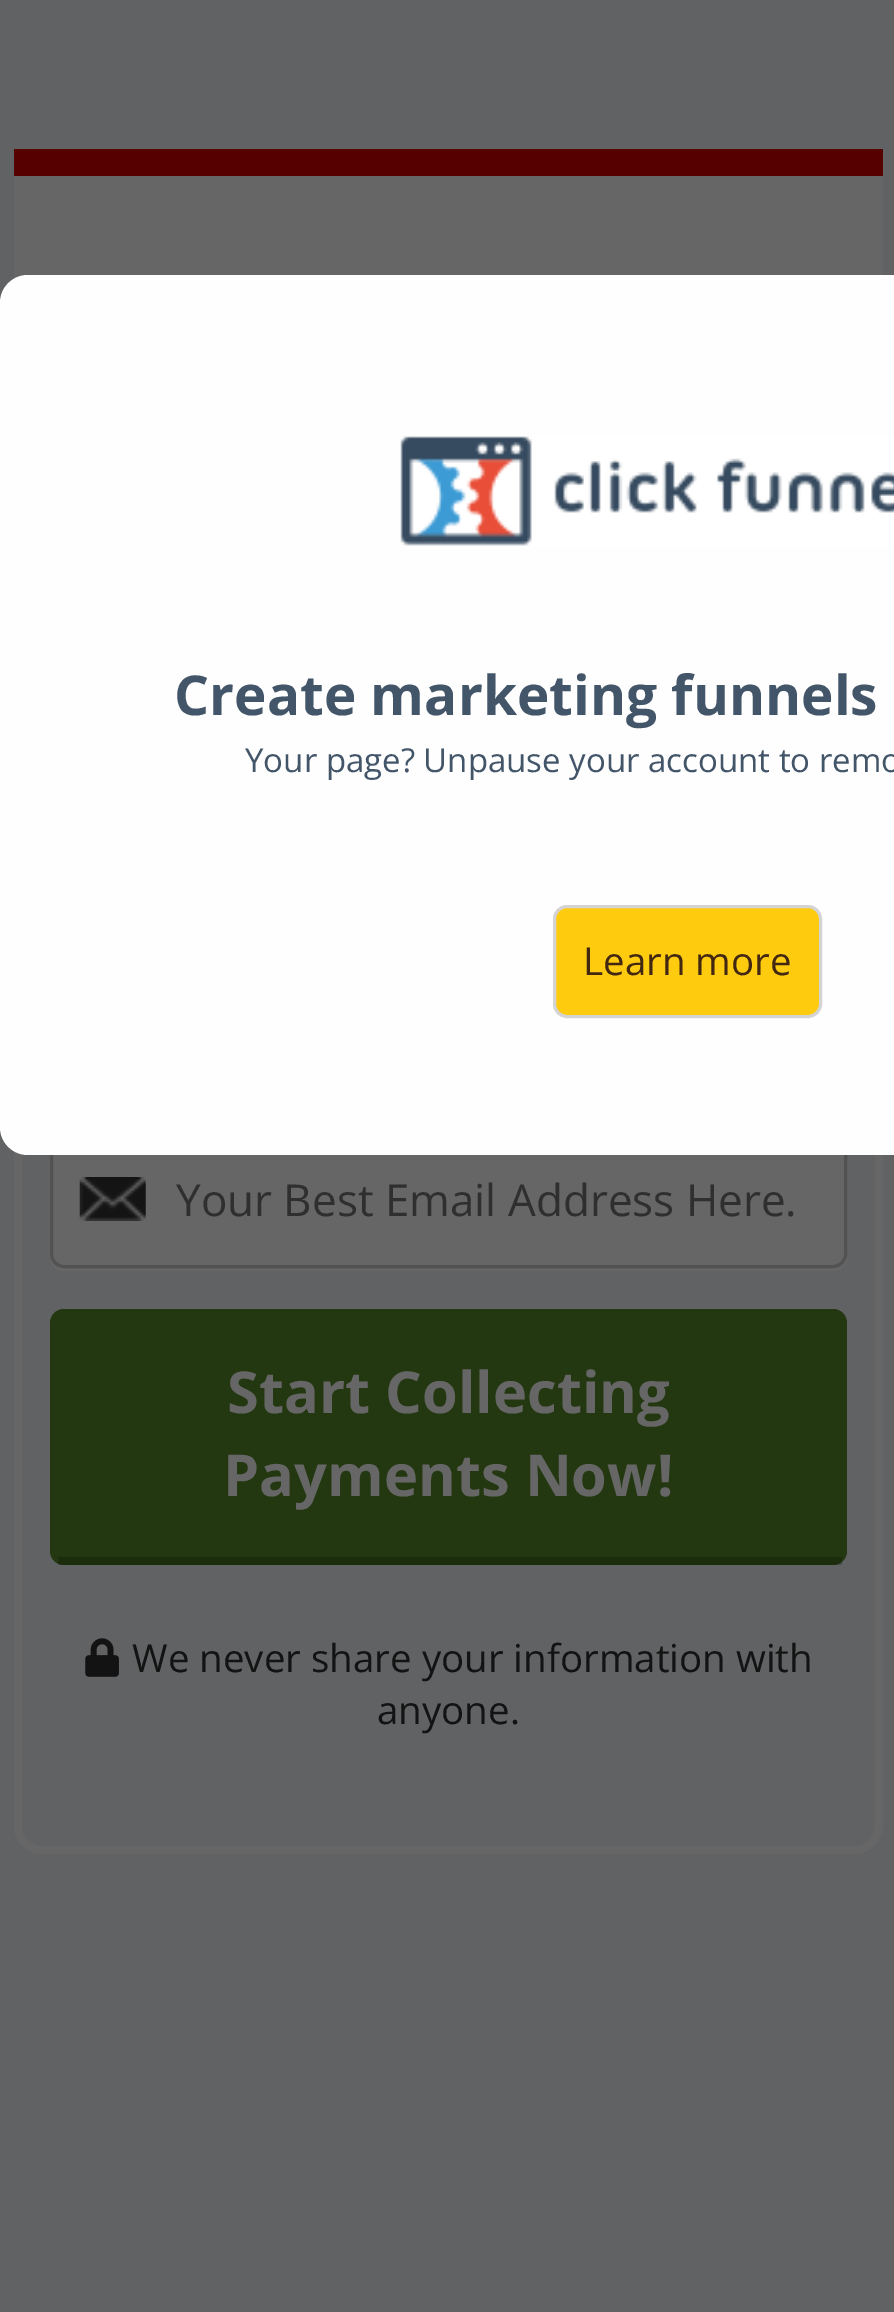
%!PS
<< /PageSize [894 2312] /PageUsesTransparency true >> setpagedevice
/rgb { dup -16 bitshift 255 div exch dup -8 bitshift 255 and 255 div exch 255 and 255 div setrgbcolor } def
/font { [ exch dup neg 0 0 3 -1 roll 0 0 ] selectfont } def
/text { moveto show } def
/alpha { dup .setfillconstantalpha .setstrokeconstantalpha } def
/roundrect { 5 dict begin { /r /h /w /y /x } { exch def } forall
  x r add y moveto x w add y 2 copy h add r arct x w add y h add x 1 index r arct
  x y h add x y r arct x y 2 copy exch w add exch r arct closepath end } def
/picture { 5 dict begin { /h /w /y /x /name } { exch def } forall
  gsave x y translate w h scale
  w h 8 [w 0 0 h 0 0] name (r) file false 3 colorimage grestore end } def
0 .pushpdf14devicefilter
0 2312 translate 1 -1 scale
4 setmiterlimit
/s1 { /OpenSans-Bold 55 font 16#435569 rgb } def
/s2 { /OpenSans-Regular 33 font 16#435569 rgb } def
/s3 { /OpenSans-Regular 38.5 font 16#432811 rgb } def
/s4 { /OpenSans-Regular 44 font 16#2F2F2F rgb } def
/s5 { /OpenSans-Bold 57.75 font 16#666666 rgb } def
/s6 { /OpenSans-Regular 38.5 font 16#131313 rgb } def
16#606263 rgb
0 0 894 2312 rectfill
16#666666 rgb
14 176 869 103 rectfill
8 setlinewidth
18 373 861 1477 24 roundrect stroke
50 1258 moveto 50 1265 57 1271 64 1271 curveto 833 1271 lineto 841 1271 847 1265 847 1257 curveto 847 1254 lineto 847 1262 841 1268 833 1268 curveto 63 1268 lineto 57 1268 52 1264 50 1258 curveto closepath fill
50 1133 797 135 14 roundrect fill
(pic2.raw) 79 1177 67 44 picture
0.2 alpha
16#000000 rgb
3 setlinewidth
51.5 1134.5 794 132 12.5 roundrect stroke
1 alpha
16#FEFEFE rgb
0 275 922 880 28 roundrect fill
(pic1.raw) 400 436 494 110 picture
s1
(Create marketing funnels) 174 715 text
s2
(Your page? Unpause your account to remo) 245 772 text
16#FFCB0E rgb
554.5 906.5 266 110 12.5 roundrect gsave fill grestore
16#D4D4D4 rgb
stroke
s3
(Learn more) 583 975 text
16#560000 rgb
14 149 869 27 rectfill
s4
(Your Best Email Address Here.) 176 1216 text
16#233811 rgb
50 1309 797 256 14 roundrect fill
0.2 alpha
16#000000 rgb
58 1557 784 8 rectfill
1 alpha
s5
(Start Collecting) 227 1413 text
(Payments Now!) 223 1496 text
(pic3.raw) 85 1638 34 39 picture
s6
(We never share your information with) 132 1672 text
(anyone.) 377 1724 text
.poppdf14devicefilter showpage
